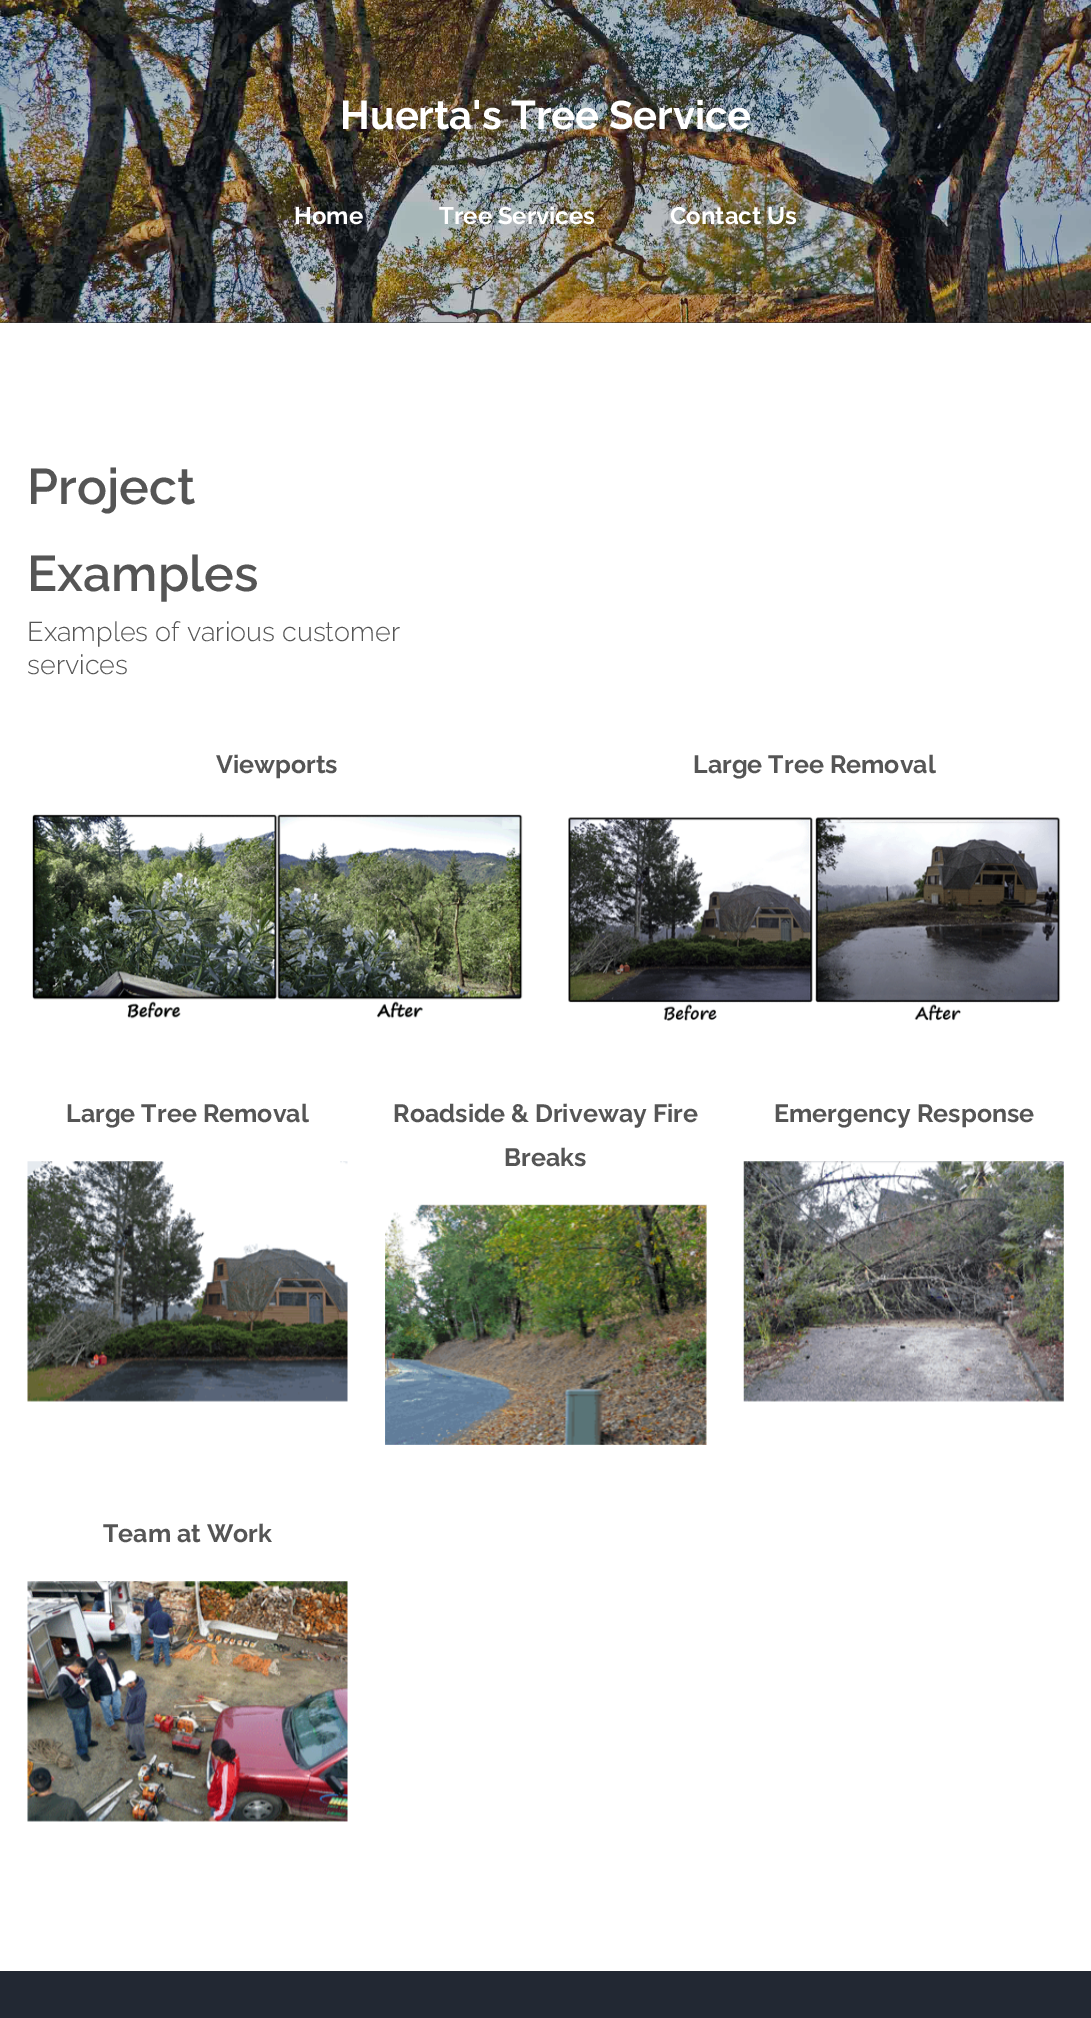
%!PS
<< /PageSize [1091 2018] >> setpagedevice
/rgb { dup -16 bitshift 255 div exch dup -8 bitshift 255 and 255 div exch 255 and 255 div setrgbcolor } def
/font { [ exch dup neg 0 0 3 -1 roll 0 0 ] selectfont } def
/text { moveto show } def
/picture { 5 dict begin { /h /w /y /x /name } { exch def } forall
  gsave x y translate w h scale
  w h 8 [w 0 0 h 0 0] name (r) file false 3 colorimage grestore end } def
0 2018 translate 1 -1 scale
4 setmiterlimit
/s1 { /Raleway-Bold 40 font 16#FFFFFF rgb } def
/s2 { /Raleway-Bold 24 font 16#FFFFFF rgb } def
/s3 { /Raleway-SemiBold 50 font 16#555555 rgb } def
/s4 { /Raleway-Light 27 font 16#555555 rgb } def
/s5 { /Raleway-Bold 25 font 16#555555 rgb } def
16#222833 rgb
0 0 1091 2018 rectfill
16#2A2E32 rgb
0 322 1091 1 rectfill
(pic1.raw) 0 0 1091 323 picture
s1
(Huerta's Tree Service) 340 129 text
s2
(Home) 294 224 text
(Tree Services) 439 224 text
(Contact Us) 670 224 text
0 323 1091 1648 rectfill
s3
(Project) 27 504 text
(Examples) 27 591 text
s4
(Examples of various customer) 27 641 text
(services) 27 674 text
s5
(Viewports) 216 773 text
(pic2.raw) 32 814 491 205 picture
(Large Tree Removal) 693 773 text
(pic3.raw) 568 817 493 204 picture
(Large Tree Removal) 66 1122 text
(pic4.raw) 27 1161 321 241 picture
(Roadside & Driveway Fire) 393 1122 text
(Breaks) 504 1166 text
(pic5.raw) 385 1204 322 241 picture
(pic6.raw) 706 1204 1 241 picture
(Emergency Response) 774 1122 text
(pic7.raw) 743 1161 321 241 picture
(Team at Work) 103 1542 text
(pic8.raw) 27 1581 321 241 picture
showpage
